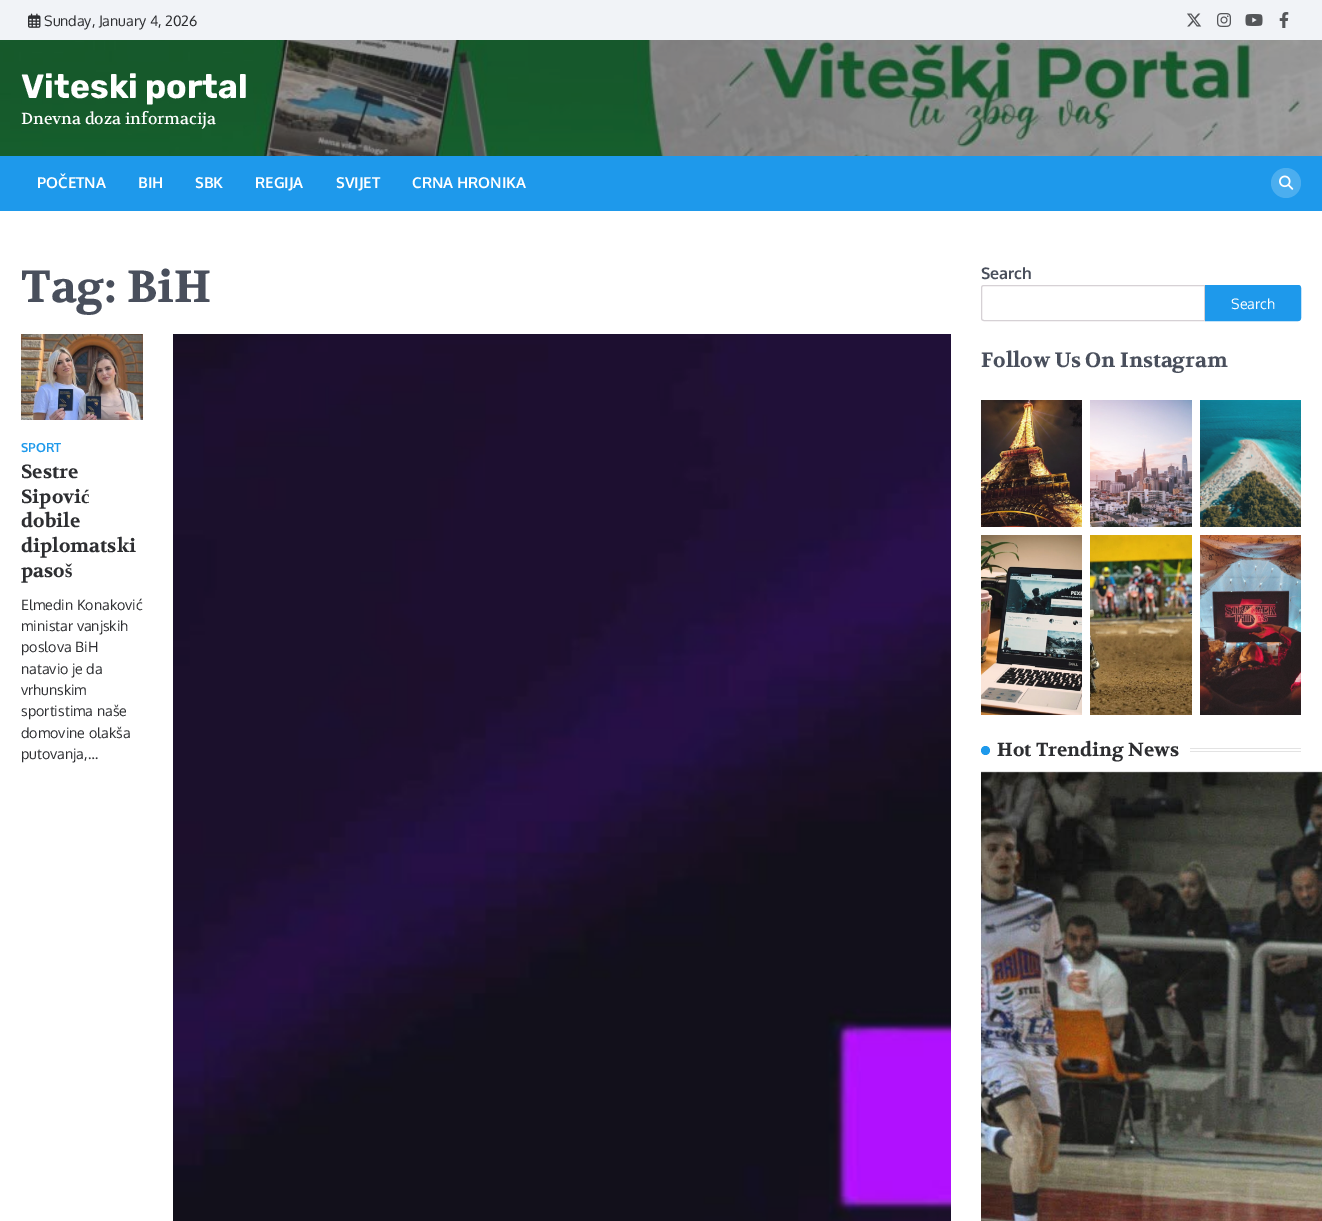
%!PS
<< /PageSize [1322 1221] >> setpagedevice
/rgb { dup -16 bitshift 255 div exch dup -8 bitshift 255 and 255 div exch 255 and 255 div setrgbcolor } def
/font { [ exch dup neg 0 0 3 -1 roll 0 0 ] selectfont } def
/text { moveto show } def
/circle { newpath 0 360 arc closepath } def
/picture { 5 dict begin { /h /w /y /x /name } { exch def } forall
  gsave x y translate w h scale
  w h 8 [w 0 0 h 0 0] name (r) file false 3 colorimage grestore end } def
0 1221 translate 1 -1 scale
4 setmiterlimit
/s1 { /Oxygen-Regular 14.25 font 16#2D2E31 rgb } def
/s2 { /Rubik-Bold 33.75 font 16#FFFFFF rgb } def
/s3 { /Volkhov-Regular 16 font 16#FFFFFF rgb } def
/s4 { /Oxygen-Bold 15 font 16#FFFFFF rgb } def
/s5 { /Volkhov-Bold 45 font 16#494F5C rgb } def
/s6 { /Oxygen-Bold 12.5 font 16#1E99EB rgb } def
/s7 { /Volkhov-Bold 19 font 16#2D2E31 rgb } def
/s8 { /LiberationSerif-Bold 19 font 16#2D2E31 rgb } def
/s9 { /Oxygen-Bold 16 font 16#494F5C rgb } def
/s10 { /Oxygen-Regular 14.25 font 16#FFFFFF rgb } def
/s11 { /Volkhov-Bold 20.75 font 16#494F5C rgb } def
16#FFFFFF rgb
0 0 1322 1221 rectfill
16#F1F3F7 rgb
0 0 1322 40 rectfill
(pic1.raw) 28 13 13 15 picture
s1
(Sunday, January 4, 2026) 44 26 text
(pic2.raw) 1187 13 15 14 picture
(pic3.raw) 1217 13 14 14 picture
(pic4.raw) 1245 14 18 12 picture
(pic5.raw) 1279 12 10 16 picture
(pic6.raw) 0 40 1322 116 picture
s2
(Viteski portal) 21 98 text
s3
(Dnevna doza informacija) 21 124 text
16#1E99EB rgb
0 156 1322 55 rectfill
s4
(POČETNA) 37 188 text
(BIH) 138 188 text
(SBK) 195 188 text
(REGIJA) 255 188 text
(SVIJET) 336 188 text
(CRNA HRONIKA) 412 188 text
16#4BAEEF rgb
1286 183 15 circle fill
(pic7.raw) 1279 175 15 15 picture
s5
(Tag: BiH) 21 302 text
(pic8.raw) 21 334 122 86 picture
s6
(SPORT) 21 452 text
s7
(Sestre) 21 478 text
(Sipovi) 21 503 text
s8
(ć) 81 503 text
s7
(dobile) 21 527 text
(diplomatski) 21 552 text
(paso) 21 577 text
s8
(š) 65 577 text
s1
(Elmedin Konaković) 21 610 text
(ministar vanjskih) 21 631 text
(poslova BiH) 21 652 text
(natavio je da) 21 674 text
(vrhunskim) 21 695 text
(sportistima naše) 21 716 text
(domovine olakša) 21 738 text
(putovanja,…) 21 759 text
(pic9.raw) 173 334 778 887 picture
s9
(Search) 981 279 text
16#D6D1D5 rgb
984 285.5 moveto 1204.5 285.5 lineto 1204.5 320.5 lineto 984 320.5 lineto 982.5 320.5 981.5 319.5 981.5 318 curveto 981.5 288 lineto 981.5 286.5 982.5 285.5 984 285.5 curveto closepath stroke
16#1E99EB rgb
1205.5 285.5 moveto 1298 285.5 lineto 1299.5 285.5 1300.5 286.5 1300.5 288 curveto 1300.5 318 lineto 1300.5 319.5 1299.5 320.5 1298 320.5 curveto 1205.5 320.5 lineto closepath gsave fill grestore
stroke
s10
(Search) 1231 309 text
s11
(Follow Us On Instagram) 981 367 text
(pic10.raw) 981 400 101 127 picture
(pic11.raw) 1090 400 102 127 picture
(pic12.raw) 1200 400 101 127 picture
(pic13.raw) 981 535 101 180 picture
(pic14.raw) 1090 535 102 180 picture
(pic15.raw) 1200 535 101 180 picture
16#1E99EB rgb
985.5 750.5 4.5 circle fill
s7
(Hot Trending News) 997 756 text
16#E3E3E3 rgb
1190 748 111 1 rectfill
1190 751 111 1 rectfill
(pic16.raw) 981 771 341 450 picture
showpage
